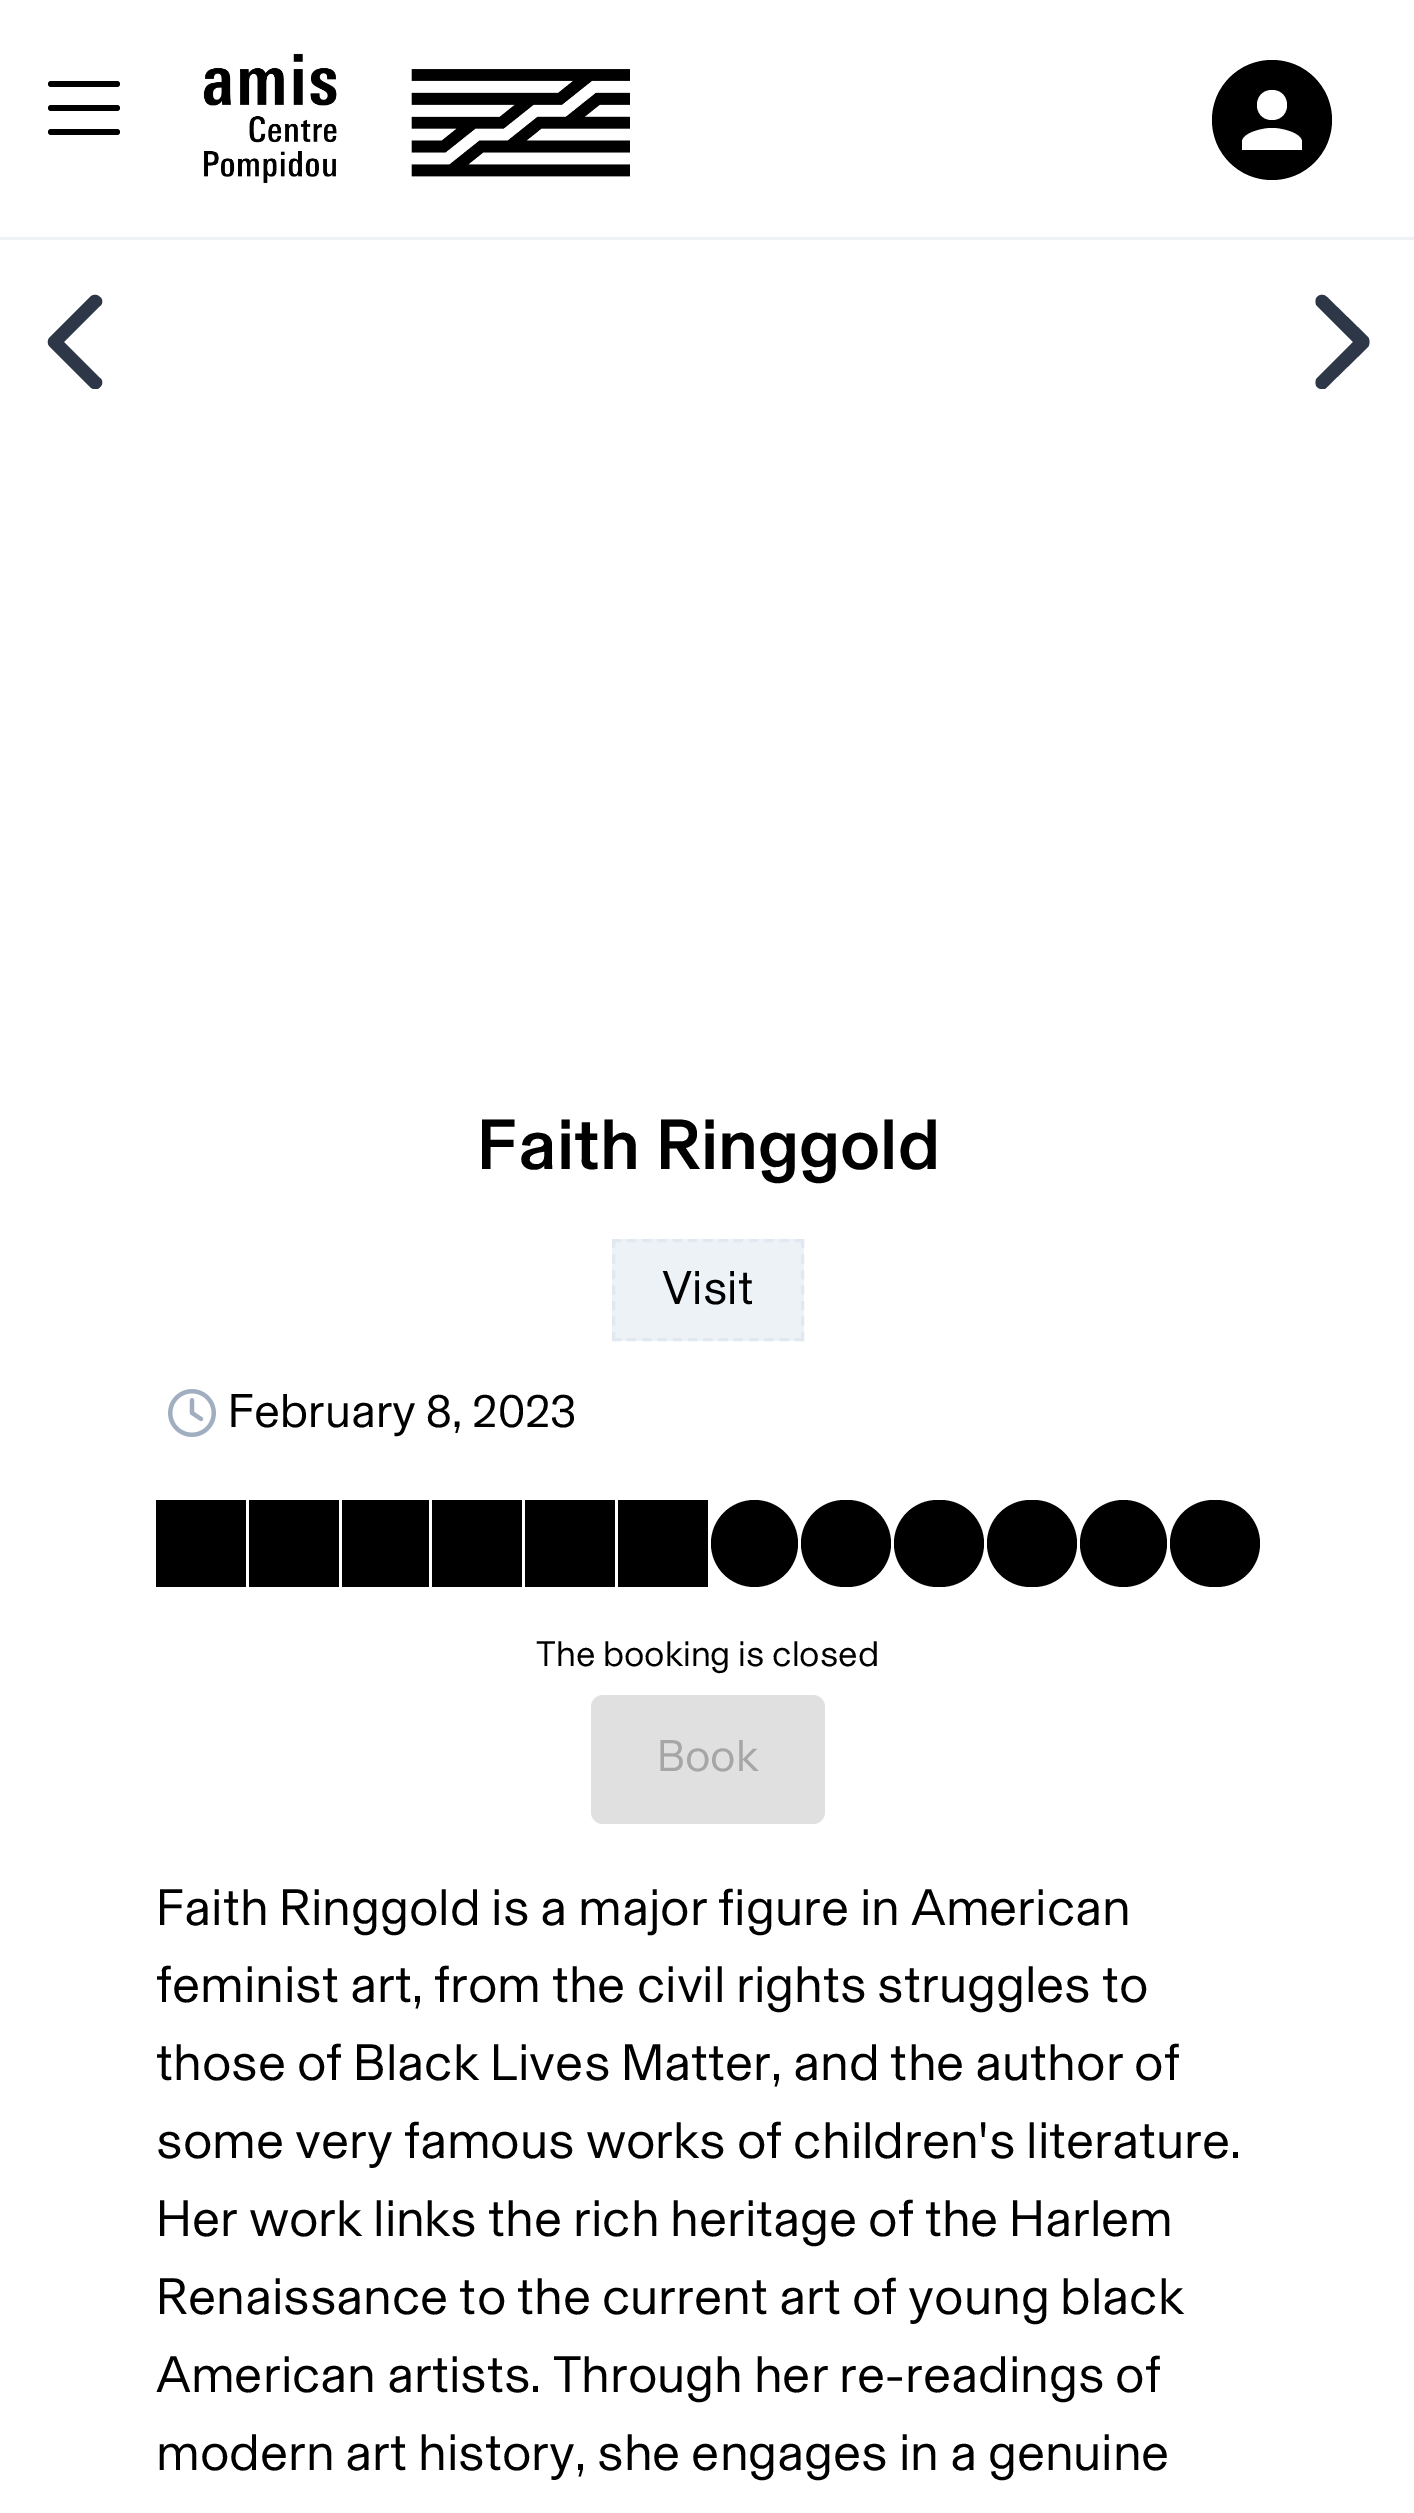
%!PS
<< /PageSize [1414 2513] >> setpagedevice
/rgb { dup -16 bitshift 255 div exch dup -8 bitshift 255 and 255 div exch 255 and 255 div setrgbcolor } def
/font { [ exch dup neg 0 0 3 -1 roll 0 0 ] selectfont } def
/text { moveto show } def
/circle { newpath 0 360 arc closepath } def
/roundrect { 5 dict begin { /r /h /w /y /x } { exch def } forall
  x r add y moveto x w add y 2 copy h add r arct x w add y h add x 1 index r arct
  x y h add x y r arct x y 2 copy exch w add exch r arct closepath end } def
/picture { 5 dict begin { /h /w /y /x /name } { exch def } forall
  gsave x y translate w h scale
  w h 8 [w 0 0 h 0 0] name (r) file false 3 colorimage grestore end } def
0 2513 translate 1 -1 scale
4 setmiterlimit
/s1 { /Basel-Medium 72 font 16#000000 rgb } def
/s2 { /Basel-Regular 48 font 16#000000 rgb } def
/s3 { /Basel-Regular 36 font 16#000000 rgb } def
/s4 { /Basel-Regular 45 font 16#A6A6A6 rgb } def
/s5 { /Basel-Regular 52 font 16#000000 rgb } def
16#FFFFFF rgb
0 0 1414 2513 rectfill
16#EDF2F7 rgb
0 237 1414 3 rectfill
16#000000 rgb
48 129 72 6 3 roundrect fill
48 81 72 6 3 roundrect fill
48 105 72 6 3 roundrect fill
(pic1.raw) 203 53 427 131 picture
1272 120 60 circle fill
16#FFFFFF rgb
1272 120 moveto 1292 120 1292 90 1272 90 curveto 1252 90 1252 120 1272 120 curveto closepath 1272 128 moveto 1262 128 1242 133 1242 142 curveto 1242 150 lineto 1302 150 lineto 1302 142 lineto 1302 133 1282 128 1272 128 curveto closepath fill
16#2D3748 rgb
95 389 moveto 94 389 92 389 90 387 curveto 50 347 lineto 47 344 47 340 50 337 curveto 90 297 lineto 93 294 97 294 100 297 curveto 103 299 103 304 100 306 curveto 64 342 lineto 100 378 lineto 103 380 103 385 100 387 curveto 99 389 97 389 95 389 curveto closepath fill
1322 389 moveto 1321 389 1319 389 1317 387 curveto 1315 385 1315 380 1317 378 curveto 1353 342 lineto 1317 306 lineto 1315 304 1315 299 1317 297 curveto 1320 294 1324 294 1327 297 curveto 1368 337 lineto 1370 340 1370 344 1368 347 curveto 1327 387 lineto 1326 389 1324 389 1322 389 curveto closepath fill
s1
(Faith Ringgold) 477 1169 text
16#EDF2F7 rgb
612 1239 192 102 rectfill
16#E2E8F0 rgb
3 setlinewidth
[9 6.24] 0 setdash
612 1240.5 moveto 804 1240.5 lineto stroke
[9 6.51] 0 setdash
802.5 1239 moveto 802.5 1341 lineto stroke
[9 6.24] 0 setdash
612 1339.5 moveto 804 1339.5 lineto stroke
[9 6.51] 0 setdash
613.5 1239 moveto 613.5 1341 lineto stroke
s2
(Visit) 662 1304 text
(pic2.raw) 168 1389 48 48 picture
(February 8, 2023) 228 1427 text
156 1500 90 87 rectfill
249 1500 90 87 rectfill
342 1500 87 87 rectfill
432 1500 90 87 rectfill
525 1500 90 87 rectfill
618 1500 90 87 rectfill
754.5 1543.5 43.5 circle fill
801 1500 90 87 43.5 roundrect fill
894 1500 90 87 43.5 roundrect fill
987 1500 90 87 43.5 roundrect fill
1123.5 1543.5 43.5 circle fill
1170 1500 90 87 43.5 roundrect fill
s3
(The booking is closed) 536 1666 text
16#E0E0E0 rgb
591 1695 234 129 12 roundrect fill
s4
(Book) 657 1771 text
s5
(Faith Ringgold is a major figure in American) 156 1925 text
(feminist art, from the civil rights struggles to) 156 2002 text
(those of Black Lives Matter, and the author of) 156 2080 text
(some very famous works of children's literature.) 156 2158 text
(Her work links the rich heritage of the Harlem) 156 2236 text
(Renaissance to the current art of young black) 156 2314 text
(American artists. Through her re-readings of) 156 2392 text
(modern art history, she engages in a genuine) 156 2470 text
showpage
